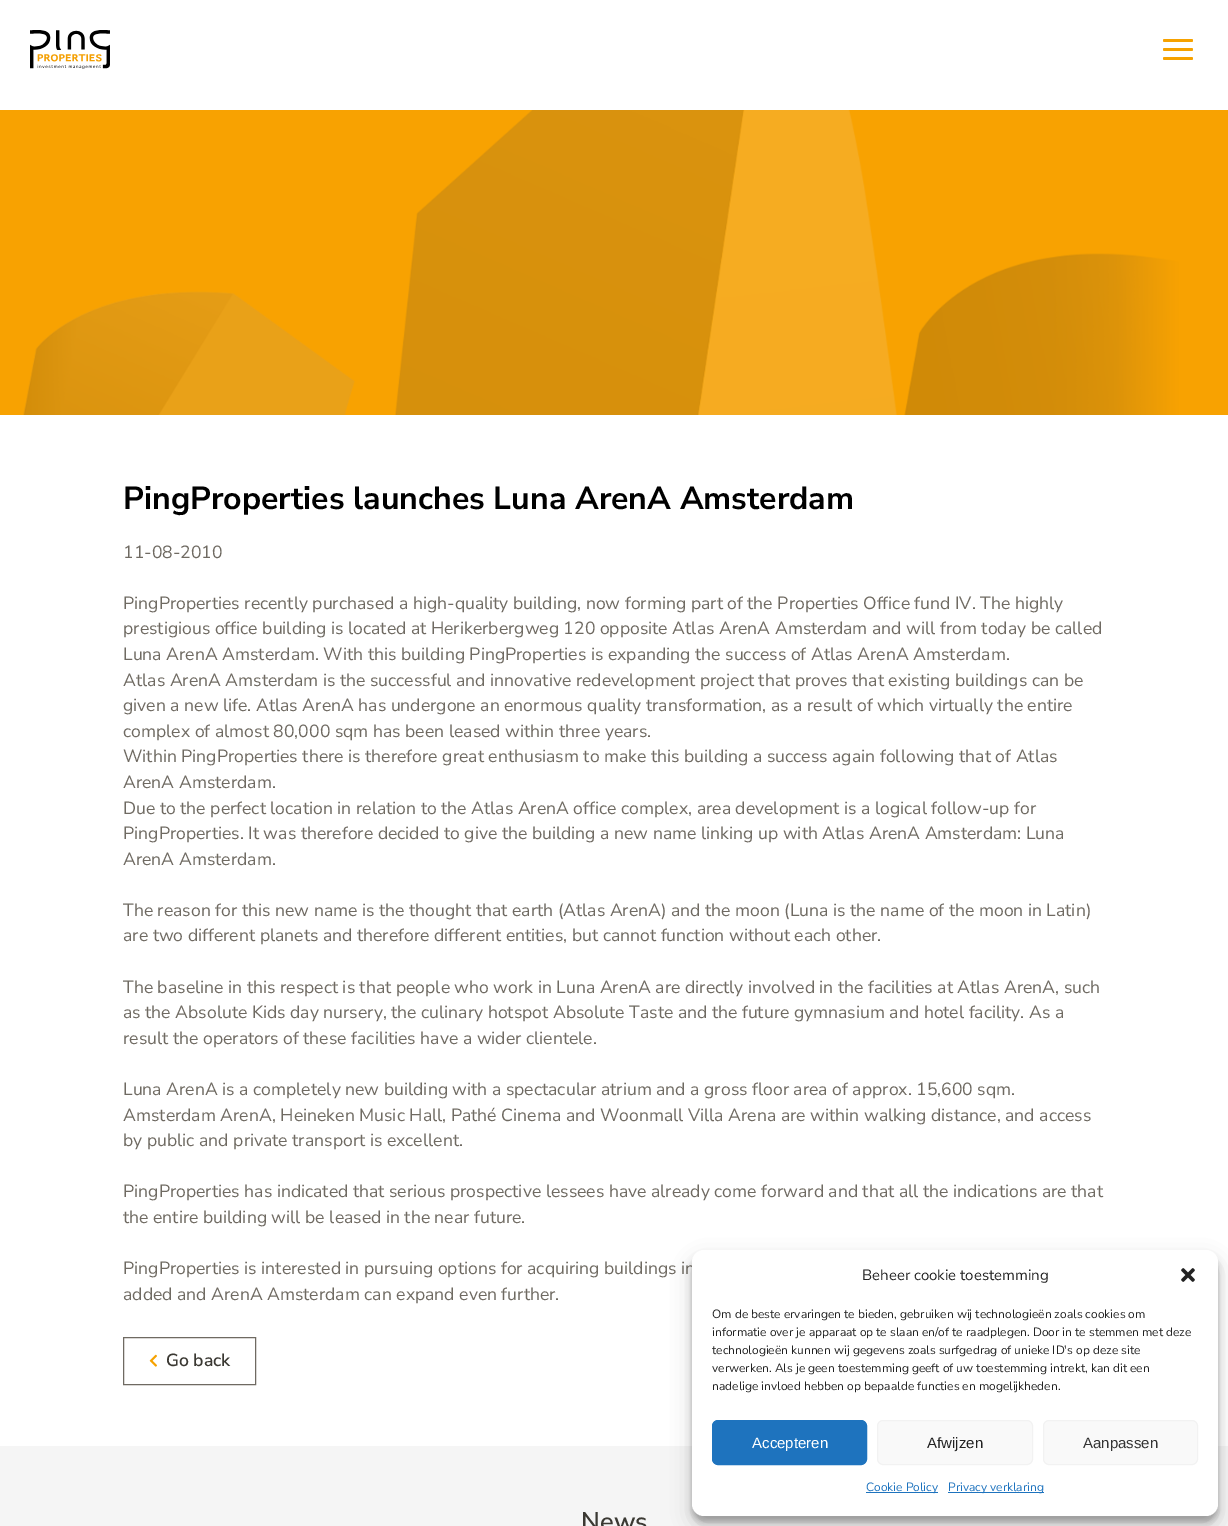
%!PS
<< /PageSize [1228 1526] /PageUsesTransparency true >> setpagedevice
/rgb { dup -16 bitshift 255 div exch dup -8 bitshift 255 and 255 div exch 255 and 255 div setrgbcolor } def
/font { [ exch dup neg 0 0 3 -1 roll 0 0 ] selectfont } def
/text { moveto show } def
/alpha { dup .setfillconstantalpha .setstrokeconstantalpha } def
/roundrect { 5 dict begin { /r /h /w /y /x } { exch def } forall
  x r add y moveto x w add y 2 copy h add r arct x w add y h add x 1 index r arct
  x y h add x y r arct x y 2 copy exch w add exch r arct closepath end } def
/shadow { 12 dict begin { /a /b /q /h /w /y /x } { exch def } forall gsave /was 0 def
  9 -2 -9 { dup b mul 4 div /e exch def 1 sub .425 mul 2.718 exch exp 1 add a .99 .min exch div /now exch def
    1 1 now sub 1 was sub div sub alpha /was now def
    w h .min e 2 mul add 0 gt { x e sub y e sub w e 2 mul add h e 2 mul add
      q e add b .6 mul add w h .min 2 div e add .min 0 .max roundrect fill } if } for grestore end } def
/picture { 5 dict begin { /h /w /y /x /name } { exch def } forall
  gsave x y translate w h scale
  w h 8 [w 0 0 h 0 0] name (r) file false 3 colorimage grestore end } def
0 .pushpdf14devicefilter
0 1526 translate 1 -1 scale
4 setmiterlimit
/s1 { /NunitoSans-Bold 32 font 16#000000 rgb } def
/s2 { /NunitoSans-Regular 17.6 font 16#6F6A62 rgb } def
/s3 { /NunitoSans-SemiBold 17.6 font 16#3B3933 rgb } def
/s4 { /NunitoSans-SemiBold 25.5 font 16#3B3933 rgb } def
/s5 { /NunitoSans-Regular 15 font 16#222222 rgb } def
/s6 { /NunitoSans-Regular 12 font 16#222222 rgb } def
/s7 { /LiberationSans-Regular 15 font 16#FFFFFF rgb } def
/s8 { /LiberationSans-Regular 15 font 16#222222 rgb } def
/s9 { /LiberationSans-Regular 15 font 16#333333 rgb } def
/s10 { /NunitoSans-Regular 12 font 16#1E73BE rgb } def
16#FFFFFF rgb
0 0 1228 1526 rectfill
(pic1.raw) 30 30 80 39 picture
16#F6A200 rgb
1163 57 30 3 1.5 roundrect fill
1163 39 30 3 1.5 roundrect fill
1163 48 30 3 1.5 roundrect fill
(pic2.raw) 0 110 1228 305 picture
s1
(PingProperties launches Luna ArenA Amsterdam) 123 509 text
s2
(11-08-2010) 123 558 text
(PingProperties recently purchased a high-quality building, now forming part of the Properties Office fund IV. The highly) 123 609 text
(prestigious office building is located at Herikerbergweg 120 opposite Atlas ArenA Amsterdam and will from today be called) 123 634 text
(Luna ArenA Amsterdam. With this building PingProperties is expanding the success of Atlas ArenA Amsterdam.) 123 660 text
(Atlas ArenA Amsterdam is the successful and innovative redevelopment project that proves that existing buildings can be) 123 686 text
(given a new life. Atlas ArenA has undergone an enormous quality transformation, as a result of which virtually the entire) 123 711 text
(complex of almost 80,000 sqm has been leased within three years.) 123 737 text
(Within PingProperties there is therefore great enthusiasm to make this building a success again following that of Atlas) 123 762 text
(ArenA Amsterdam.) 123 788 text
(Due to the perfect location in relation to the Atlas ArenA office complex, area development is a logical follow-up for) 123 814 text
(PingProperties. It was therefore decided to give the building a new name linking up with Atlas ArenA Amsterdam: Luna) 123 839 text
(ArenA Amsterdam.) 123 865 text
(The reason for this new name is the thought that earth \(Atlas ArenA\) and the moon \(Luna is the name of the moon in Latin\)) 123 916 text
(are two different planets and therefore different entities, but cannot function without each other.) 123 941 text
(The baseline in this respect is that people who work in Luna ArenA are directly involved in the facilities at Atlas ArenA, such) 123 993 text
(as the Absolute Kids day nursery, the culinary hotspot Absolute Taste and the future gymnasium and hotel facility. As a) 123 1018 text
(result the operators of these facilities have a wider clientele.) 123 1044 text
(Luna ArenA is a completely new building with a spectacular atrium and a gross floor area of approx. 15,600 sqm.) 123 1095 text
(Amsterdam ArenA, Heineken Music Hall, Pathé Cinema and Woonmall Villa Arena are within walking distance, and access) 123 1121 text
(by public and private transport is excellent.) 123 1146 text
(PingProperties has indicated that serious prospective lessees have already come forward and that all the indications are that) 123 1197 text
(the entire building will be leased in the near future.) 123 1223 text
(PingProperties is interested in pursuing options for acquiring buildings in) 123 1274 text
(added and ArenA Amsterdam can expand even further.) 123 1300 text
123.5 1337.5 132 47 rectstroke
(pic3.raw) 149 1354 8 13 picture
s3
(Go back) 166 1366 text
16#F5F5F5 rgb
0 1446 1228 80 rectfill
s4
(News) 581 1530 text
16#000000 rgb
692 1256 526 266 12 3 0.23 shadow
692 1260 526 266 12 10 0.19 shadow
16#FFFFFF rgb
692 1250 526 266 12 roundrect fill
s5
(Beheer cookie toestemming) 862 1280 text
(pic4.raw) 1181 1268 14 14 picture
s6
(Om de beste ervaringen te bieden, gebruiken wij technologieën zoals cookies om) 712 1318 text
(informatie over je apparaat op te slaan en/of te raadplegen. Door in te stemmen met deze) 712 1336 text
(technologieën kunnen wij gegevens zoals surfgedrag of unieke ID's op deze site) 712 1354 text
(verwerken. Als je geen toestemming geeft of uw toestemming intrekt, kan dit een) 712 1372 text
(nadelige invloed hebben op bepaalde functies en mogelijkheden.) 712 1390 text
16#1E73BE rgb
712.5 1420.5 154 44 5.5 roundrect gsave fill grestore
stroke
s7
(Accepteren) 752 1448 text
16#F9F9F9 rgb
877.5 1420.5 155 44 5.5 roundrect gsave fill grestore
16#F2F2F2 rgb
stroke
s8
(Afwijzen) 927 1448 text
16#F9F9F9 rgb
1043.5 1420.5 154 44 5.5 roundrect gsave fill grestore
16#F2F2F2 rgb
stroke
s9
(Aanpassen) 1083 1448 text
16#1E73BE rgb
866 1492 72 1 rectfill
s10
(Cookie Policy) 866 1491 text
948 1492 96 1 rectfill
(Privacy verklaring) 948 1491 text
.poppdf14devicefilter showpage
